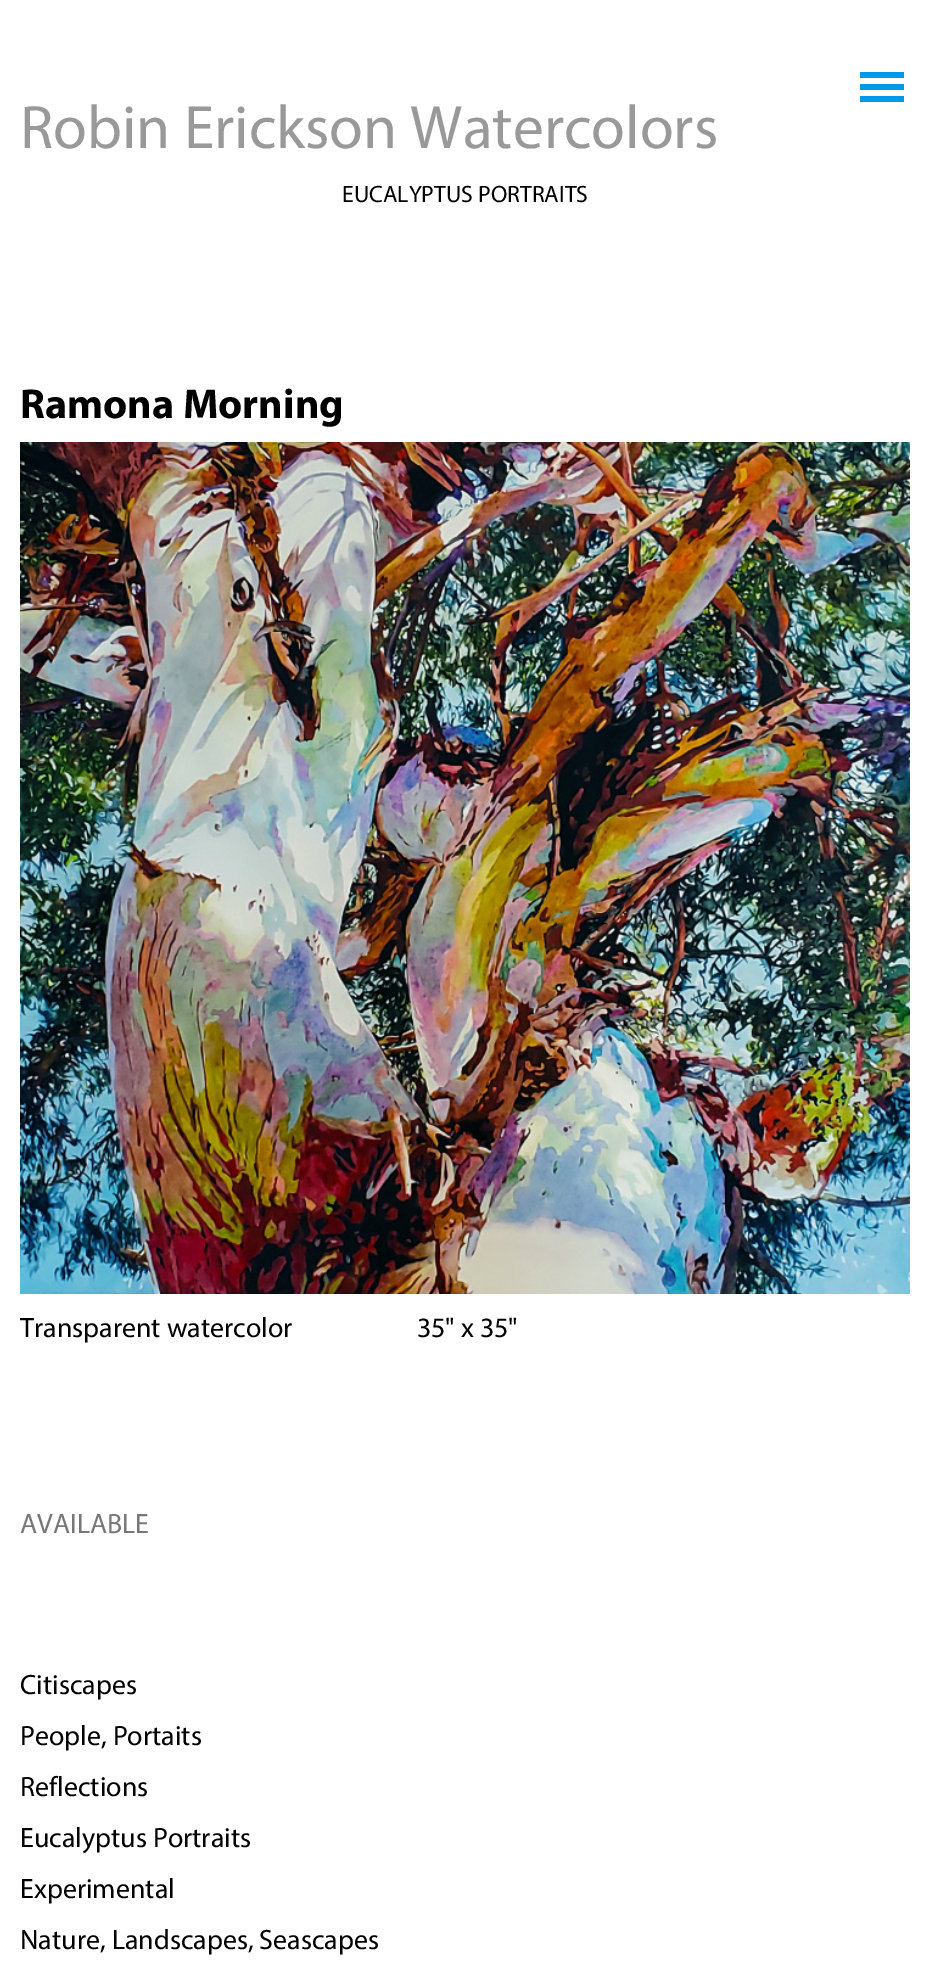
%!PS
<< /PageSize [929 1970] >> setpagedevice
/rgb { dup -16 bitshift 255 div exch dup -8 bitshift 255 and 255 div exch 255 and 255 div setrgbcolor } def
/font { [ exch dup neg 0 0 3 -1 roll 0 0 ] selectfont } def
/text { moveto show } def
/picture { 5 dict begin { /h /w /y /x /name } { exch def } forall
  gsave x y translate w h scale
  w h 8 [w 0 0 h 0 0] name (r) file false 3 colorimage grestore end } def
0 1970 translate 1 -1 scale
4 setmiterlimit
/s1 { /Myriad-Regular 61.6 font 16#999999 rgb } def
/s2 { /Myriad-Regular 23.75 font 16#000000 rgb } def
/s3 { /Myriad-Bold 42 font 16#000000 rgb } def
/s4 { /Myriad-Regular 28 font 16#000000 rgb } def
/s5 { /Myriad-Regular 28 font 16#777777 rgb } def
16#FFFFFF rgb
0 0 929 1970 rectfill
16#0099EA rgb
860 72 44 6 rectfill
860 84 44 6 rectfill
860 96 44 6 rectfill
s1
(Robin Erickson Watercolors) 20 148 text
s2
(EUCALYPTUS PORTRAITS) 342 202 text
s3
(Ramona Morning) 20 418 text
(pic1.raw) 20 442 890 852 picture
s4
(Transparent watercolor                     35" x 35") 20 1337 text
s5
(AVAILABLE) 20 1533 text
s4
(Citiscapes) 20 1694 text
(People, Portaits) 20 1745 text
(Reflections) 20 1796 text
(Eucalyptus Portraits) 20 1847 text
(Experimental) 20 1898 text
(Nature, Landscapes, Seascapes) 20 1949 text
showpage
